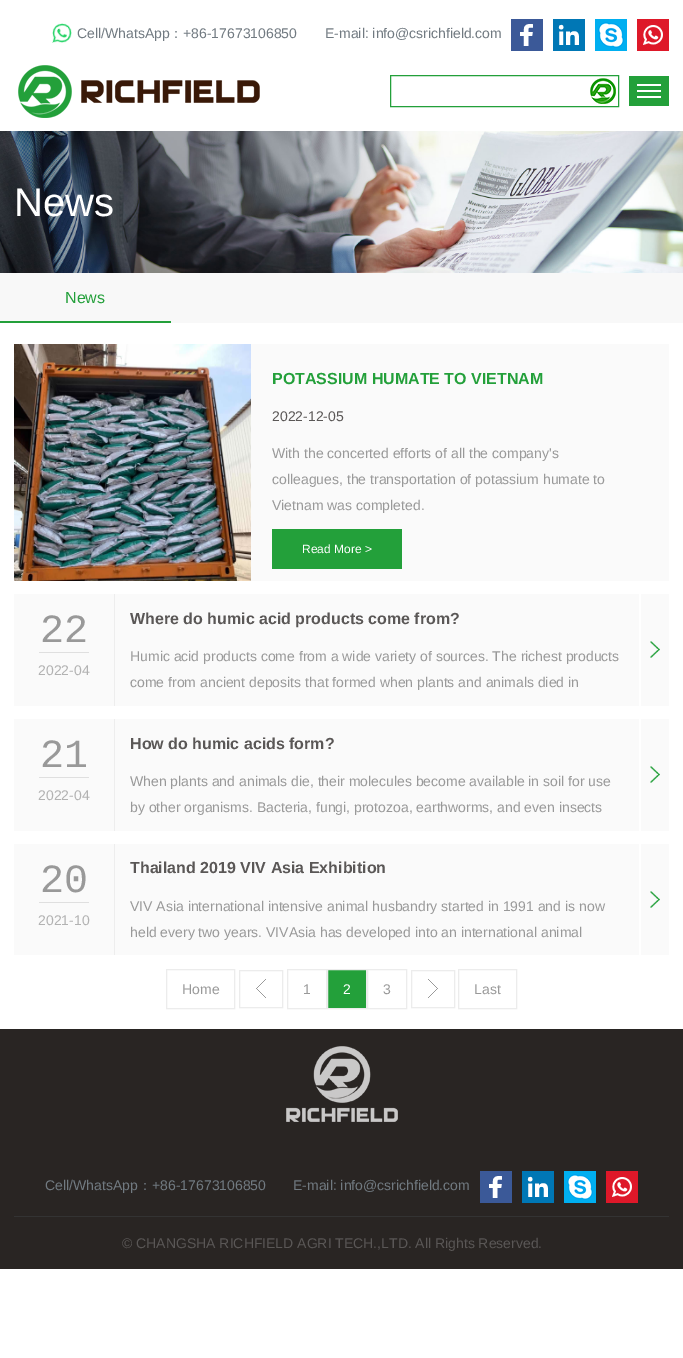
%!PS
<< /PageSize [683 1358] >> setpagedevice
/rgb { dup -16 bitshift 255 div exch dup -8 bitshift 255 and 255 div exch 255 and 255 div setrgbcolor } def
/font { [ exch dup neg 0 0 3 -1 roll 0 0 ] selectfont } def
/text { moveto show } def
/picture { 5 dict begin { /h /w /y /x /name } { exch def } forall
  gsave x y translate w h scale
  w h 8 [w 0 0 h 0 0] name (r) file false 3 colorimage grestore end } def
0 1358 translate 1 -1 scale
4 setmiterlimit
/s1 { /LiberationSans-Regular 14 font 16#717A81 rgb } def
/s2 { /WenQuanYiZenHei-Medium 14 font 16#717A81 rgb } def
/s3 { /LiberationSans-Regular 40 font 16#FFFFFF rgb } def
/s4 { /LiberationSans-Regular 16 font 16#23A03A rgb } def
/s5 { /LiberationSans-Bold 16 font 16#23A03A rgb } def
/s6 { /LiberationSans-Regular 14 font 16#5A5756 rgb } def
/s7 { /LiberationSans-Regular 14 font 16#999999 rgb } def
/s8 { /LiberationSans-Regular 12 font 16#FFFFFF rgb } def
/s9 { /LiberationMono-Regular 40 font 16#999999 rgb } def
/s10 { /LiberationSans-Regular 14 font 16#B2B2B2 rgb } def
/s11 { /LiberationSans-Bold 16 font 16#5A5756 rgb } def
/s12 { /LiberationSans-Regular 14 font 16#FFFFFF rgb } def
16#FFFFFF rgb
0 0 683 1358 rectfill
(pic1.raw) 52 23 20 20 picture
s1
(Cell/WhatsApp) 77 38 text
s2
(：) 169 38 text
s1
(+86-17673106850) 183 38 text
(E-mail: info@csrichfield.com) 325 38 text
(pic2.raw) 511 19 32 32 picture
(pic3.raw) 553 19 32 32 picture
(pic4.raw) 595 19 32 32 picture
(pic5.raw) 637 19 32 32 picture
(pic6.raw) 18 65 242 53 picture
16#23A03A rgb
390.5 75.5 228 31 rectstroke
(pic7.raw) 590 78 26 26 picture
629 76 40 30 rectfill
16#FFFFFF rgb
637 90 24 2 rectfill
637 84 24 2 rectfill
637 96 24 2 rectfill
(pic8.raw) 0 131 683 142 picture
s3
(News) 14 216 text
16#F8F8F8 rgb
0 273 683 50 rectfill
s4
(News) 65 303 text
0 321 171 2 rectfill
16#FAFAFA rgb
251 344 418 237 rectfill
(pic9.raw) 14 344 237 237 picture
s5
(POTASSIUM HUMATE TO VIETNAM) 272 384 text
s6
(2022-12-05) 272 421 text
s7
(With the concerted efforts of all the company's) 272 458 text
(colleagues, the transportation of potassium humate to) 272 484 text
(Vietnam was completed.) 272 510 text
16#23A03A rgb
272 529 130 40 rectfill
s8
(Read More >) 302 553 text
16#FAFAFA rgb
14 594 655 112 rectfill
s9
(22) 40 642 text
16#DFDFDF rgb
39 652 50 1 rectfill
s10
(2022-04) 38 675 text
16#EDEDED rgb
114 594 1 112 rectfill
s11
(Where do humic acid products come from?) 130 624 text
s7
(Humic acid products come from a wide variety of sources. The richest products) 130 661 text
(come from ancient deposits that formed when plants and animals died in) 130 687 text
(pic10.raw) 650 641 10 17 picture
16#FFFFFF rgb
639 594 2 112 rectfill
16#FAFAFA rgb
14 719 655 112 rectfill
s9
(21) 40 767 text
16#DFDFDF rgb
39 777 50 1 rectfill
s10
(2022-04) 38 800 text
16#EDEDED rgb
114 719 1 112 rectfill
s11
(How do humic acids form?) 130 749 text
s7
(When plants and animals die, their molecules become available in soil for use) 130 786 text
(by other organisms. Bacteria, fungi, protozoa, earthworms, and even insects) 130 812 text
(pic10.raw) 650 766 10 17 picture
16#FFFFFF rgb
639 719 2 112 rectfill
16#FAFAFA rgb
14 844 655 111 rectfill
s9
(20) 40 892 text
16#DFDFDF rgb
39 902 50 1 rectfill
s10
(2021-10) 38 925 text
16#EDEDED rgb
114 844 1 111 rectfill
s11
(Thailand 2019 VIV Asia Exhibition) 130 873 text
s7
(VIV Asia international intensive animal husbandry started in 1991 and is now) 130 911 text
(held every two years. VIVAsia has developed into an international animal) 130 937 text
(pic10.raw) 650 891 10 17 picture
16#FFFFFF rgb
639 844 2 111 rectfill
16#ECECEC rgb
166.5 969.5 68 39 rectstroke
s7
(Home) 182 994 text
(pic11.raw) 256 979 10 19 picture
16#ECECEC rgb
239.5 970.5 43 37 rectstroke
287.5 969.5 39 39 rectstroke
s7
(1) 303 994 text
16#23A03A rgb
327.5 969.5 moveto 366.5 969.5 lineto 366.5 1008.5 lineto 327.5 1008.5 lineto closepath gsave fill grestore
16#ECECEC rgb
stroke
s12
(2) 343 994 text
16#ECECEC rgb
367.5 969.5 39 39 rectstroke
s7
(3) 383 994 text
(pic12.raw) 428 979 10 19 picture
16#ECECEC rgb
411.5 970.5 43 37 rectstroke
458.5 969.5 58 39 rectstroke
s7
(Last) 474 994 text
16#292523 rgb
0 1029 683 240 rectfill
(pic13.raw) 286 1046 112 76 picture
s1
(Cell/WhatsApp) 45 1190 text
s2
(：) 138 1190 text
s1
(+86-17673106850) 152 1190 text
(E-mail: info@csrichfield.com) 293 1190 text
(pic2.raw) 480 1171 32 32 picture
(pic3.raw) 522 1171 32 32 picture
(pic4.raw) 564 1171 32 32 picture
(pic5.raw) 606 1171 32 32 picture
16#333333 rgb
14 1216 655 1 rectfill
s6
(© CHANGSHA RICHFIELD AGRI TECH.,LTD. All Rights Reserved.) 122 1248 text
showpage
